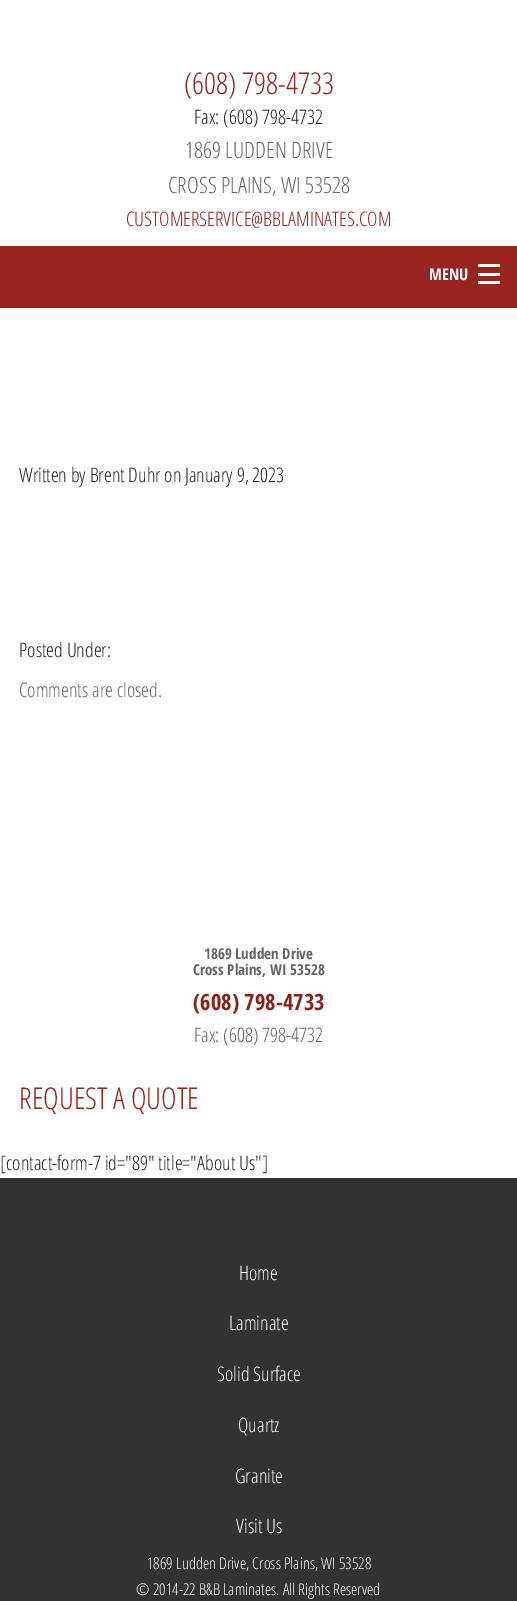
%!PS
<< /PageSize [517 1601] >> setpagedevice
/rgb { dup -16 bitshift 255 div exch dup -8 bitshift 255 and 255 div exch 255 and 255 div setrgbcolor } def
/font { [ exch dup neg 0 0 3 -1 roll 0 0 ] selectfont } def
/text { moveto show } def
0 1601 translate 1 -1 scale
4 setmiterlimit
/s1 { /OpenSansCondensed-Light 30 font 16#972324 rgb } def
/s2 { /OpenSansCondensed-Light 20 font 16#222222 rgb } def
/s3 { /OpenSansCondensed-Light 22.5 font 16#656565 rgb } def
/s4 { /OpenSansCondensed-Light 20 font 16#99241D rgb } def
/s5 { /OpenSansCondensed-Bold 16.25 font 16#FFFFFF rgb } def
/s6 { /OpenSansCondensed-Light 20 font 16#656565 rgb } def
/s7 { /OpenSansCondensed-Bold 15 font 16#656565 rgb } def
/s8 { /OpenSansCondensed-Bold 22.5 font 16#8D221D rgb } def
/s9 { /OpenSansCondensed-Light 30 font 16#99241D rgb } def
/s10 { /OpenSansCondensed-Light 20 font 16#FFFFFF rgb } def
/s11 { /OpenSansCondensed-Light 16.25 font 16#FFFFFF rgb } def
16#FFFFFF rgb
0 0 517 1601 rectfill
s1
(\(608\) 798-4733) 184 94 text
s2
(Fax: \(608\) 798-4732) 194 124 text
s3
(1869 LUDDEN DRIVE) 185 158 text
(CROSS PLAINS, WI 53528) 168 193 text
s4
(CUSTOMERSERVICE@BBLAMINATES.COM) 126 226 text
16#97241F rgb
0 246 517 62 rectfill
s5
(MENU) 429 280 text
478 281 22 3 rectfill
478 273 22 3 rectfill
478 264 22 3 rectfill
s2
(Written by Brent Duhr on January 9, 2023) 19 482 text
(Posted Under:) 19 657 text
s6
(Comments are closed.) 19 697 text
s7
(1869 Ludden Drive) 204 959 text
(Cross Plains, WI 53528) 193 975 text
s8
(\(608\) 798-4733) 193 1010 text
s6
(Fax: \(608\) 798-4732) 194 1042 text
s9
(REQUEST A QUOTE) 19 1109 text
s2
([contact-form-7 id="89" title="About Us"]) 0 1170 text
16#323232 rgb
0 1178 517 423 rectfill
s10
(Home) 239 1280 text
(Laminate) 229 1330 text
(Solid Surface) 217 1381 text
(Quartz) 238 1432 text
(Granite) 235 1483 text
(Visit Us) 236 1533 text
s11
(1869 Ludden Drive, Cross Plains, WI 53528) 147 1569 text
(© 2014-22 B&B Laminates. All Rights Reserved) 136 1595 text
showpage
